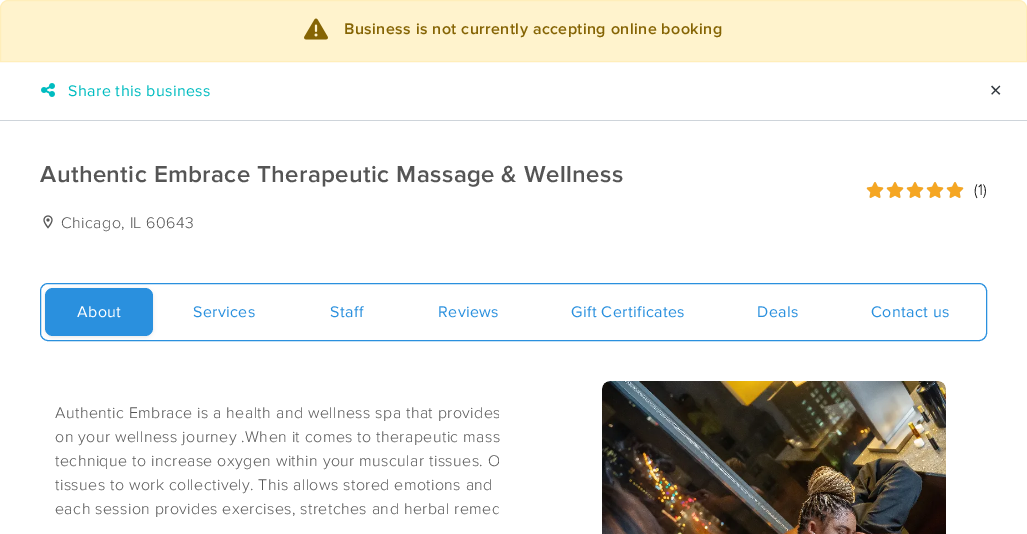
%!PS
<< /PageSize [1027 534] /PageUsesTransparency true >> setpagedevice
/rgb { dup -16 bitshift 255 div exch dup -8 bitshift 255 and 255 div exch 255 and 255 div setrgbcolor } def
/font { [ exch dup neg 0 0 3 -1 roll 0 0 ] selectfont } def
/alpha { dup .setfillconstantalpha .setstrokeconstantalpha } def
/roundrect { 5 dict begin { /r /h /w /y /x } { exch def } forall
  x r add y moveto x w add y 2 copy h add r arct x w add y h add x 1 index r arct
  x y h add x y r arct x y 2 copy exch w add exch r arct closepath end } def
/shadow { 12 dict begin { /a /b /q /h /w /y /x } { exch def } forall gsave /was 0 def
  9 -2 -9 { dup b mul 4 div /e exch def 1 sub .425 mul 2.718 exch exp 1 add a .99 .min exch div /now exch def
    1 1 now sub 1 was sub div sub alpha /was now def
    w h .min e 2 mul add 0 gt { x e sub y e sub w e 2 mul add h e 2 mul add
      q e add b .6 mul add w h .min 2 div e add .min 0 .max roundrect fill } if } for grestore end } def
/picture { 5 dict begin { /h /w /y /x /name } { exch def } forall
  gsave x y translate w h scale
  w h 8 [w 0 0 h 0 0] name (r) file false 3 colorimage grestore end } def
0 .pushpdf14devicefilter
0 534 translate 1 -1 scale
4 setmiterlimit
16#FFFFFF rgb
0 0 1027 534 rectfill
16#FFF3CD rgb
8 0.5 moveto 1019 0.5 lineto 1023 0.5 1026.5 4 1026.5 8 curveto 1026.5 61.5 lineto 0.5 61.5 lineto 0.5 8 lineto 0.5 4 4 0.5 8 0.5 curveto closepath gsave fill grestore
16#FFEEBA rgb
stroke
(pic1.raw) 304 18 24 22 picture
/ProximaNova-SemiBold 16 font
16#856404 rgb
344 34 moveto 0.4 0 (Business is not currently accepting online booking) ashow
16#CED4DA rgb
0 120 1027 1 rectfill
(pic2.raw) 41 83 14 14 picture
/ProximaNova-Regular 16 font
16#00BCC0 rgb
68 96 moveto 0.4 0 (Share this business) ashow
/DejaVuSans-Regular 16 font
16#343A40 rgb
989 96 moveto 0.4 0 (✕) ashow
/ProximaNova-SemiBold 24 font
16#555555 rgb
40 182 moveto 0.4 0 (Authentic Embrace Therapeutic Massage & Wellness) ashow
(pic3.raw) 43 215 10 14 picture
/ProximaNova-Light 16 font
61 228 moveto 0.4 0 (Chicago, IL 60643) ashow
(pic4.raw) 866 182 98 16 picture
(pic5.raw) 866 182 98 16 picture
16#000000 rgb
974 195 moveto 0.4 0 (\(1\)) ashow
16#2A90DE rgb
40.5 283.5 946 57 7.5 roundrect stroke
16#121212 rgb
45 289 108 48 8 2 0.1 shadow
16#2A90DE rgb
45 288 108 48 8 roundrect fill
/ProximaNova-Regular 16 font
16#FFFFFF rgb
77 317 moveto 0.4 0 (About) ashow
16#2A90DE rgb
193 317 moveto 0.4 0 (Services) ashow
330 317 moveto 0.4 0 (Staff) ashow
438 317 moveto 0.4 0 (Reviews) ashow
571 317 moveto 0.4 0 (Gift Certificates) ashow
757 317 moveto 0.4 0 (Deals) ashow
871 317 moveto 0.4 0 (Contact us) ashow
gsave
40 381 459 153 rectclip
/ProximaNova-Light 16 font
16#555555 rgb
55 418 moveto 0.4 0 (Authentic Embrace is a health and wellness spa that provides) ashow
grestore
/ProximaNova-Light 16 font
16#555555 rgb
55 442 moveto 0.4 0 (on your wellness journey .When it comes to therapeutic mass) ashow
gsave
40 381 459 153 rectclip
55 466 moveto 0.4 0 (technique to increase oxygen within your muscular tissues. O) ashow
grestore
55 490 moveto 0.4 0 (tissues to work collectively. This allows stored emotions and) ashow
gsave
40 381 459 153 rectclip
55 514 moveto 0.4 0 (each session provides exercises, stretches and herbal remed) ashow
grestore
(pic6.raw) 602 381 344 153 picture
.poppdf14devicefilter showpage
